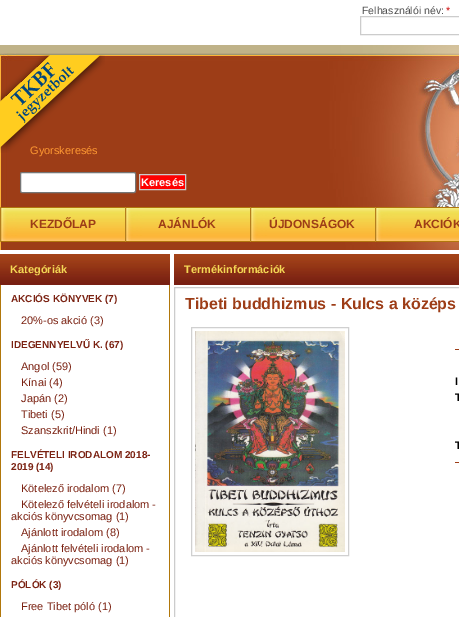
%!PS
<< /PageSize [459 617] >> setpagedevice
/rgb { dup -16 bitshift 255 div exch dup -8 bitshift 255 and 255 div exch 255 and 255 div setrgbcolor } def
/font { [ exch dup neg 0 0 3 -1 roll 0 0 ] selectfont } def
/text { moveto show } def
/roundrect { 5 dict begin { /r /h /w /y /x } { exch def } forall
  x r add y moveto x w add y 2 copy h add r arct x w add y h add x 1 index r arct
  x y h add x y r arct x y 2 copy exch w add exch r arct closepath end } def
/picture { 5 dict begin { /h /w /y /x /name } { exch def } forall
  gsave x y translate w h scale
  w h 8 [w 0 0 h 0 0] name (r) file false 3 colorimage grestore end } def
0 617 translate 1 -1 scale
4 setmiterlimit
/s1 { /LiberationSans-Regular 10.5 font 16#4E4E4E rgb } def
/s2 { /LiberationSans-Regular 10.5 font 16#CC0000 rgb } def
/s3 { /LiberationSans-Regular 11 font 16#FF9933 rgb } def
/s4 { /LiberationSans-Bold 11 font 16#FFFFFF rgb } def
/s5 { /LiberationSans-Bold 12 font 16#9D3D17 rgb } def
/s6 { /LiberationSans-Bold 11 font 16#F4D755 rgb } def
/s7 { /LiberationSans-Bold 10 font 16#7B2212 rgb } def
/s8 { /LiberationSans-Regular 11 font 16#7B2212 rgb } def
/s9 { /LiberationSans-Bold 16 font 16#9D3D17 rgb } def
/s10 { /LiberationSans-Bold 11 font 16#000000 rgb } def
16#FFFFFF rgb
0 0 459 617 rectfill
(pic1.raw) 0 45 459 205 picture
s1
(Felhasználói név:) 362 14 text
s2
(*) 446 14 text
16#CCCCCC rgb
360.5 16.5 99 18 rectstroke
(pic2.raw) 0 55 105 98 picture
s3
(Gyorskeresés) 30 154 text
16#FFFFFF rgb
20.5 172.5 115 20 1.5 roundrect gsave fill grestore
16#767676 rgb
stroke
16#FF0000 rgb
139.5 174.5 moveto 185.5 174.5 lineto 185.5 189.5 lineto 139.5 189.5 lineto closepath gsave fill grestore
16#CCCCCC rgb
stroke
s4
(Keresés) 141 186 text
(pic3.raw) 0 207 125 35 picture
s5
(KEZDŐLAP) 30 228 text
(pic3.raw) 125 207 125 35 picture
(AJÁNLÓK) 158 228 text
(pic3.raw) 250 207 125 35 picture
(ÚJDONSÁGOK) 269 228 text
(pic4.raw) 375 207 84 35 picture
(AKCIÓK) 414 228 text
(pic5.raw) 0 254 170 31 picture
s6
(Kategóriák) 10 273 text
16#B1770B rgb
169 285 1 332 rectfill
0 285 1 332 rectfill
s7
(AKCIÓS KÖNYVEK \(7\)) 11 302 text
s8
(20%-os akció \(3\)) 21 324 text
s7
(IDEGENNYELVŰ K. \(67\)) 11 348 text
s8
(Angol \(59\)) 21 370 text
(Kínai \(4\)) 21 386 text
(Japán \(2\)) 21 402 text
(Tibeti \(5\)) 21 418 text
(Szanszkrit/Hindi \(1\)) 21 434 text
s7
(FELVÉTELI IRODALOM 2018-) 11 458 text
(2019 \(14\)) 11 470 text
s8
(Kötelező irodalom \(7\)) 21 492 text
(Kötelező felvételi irodalom -) 21 508 text
(akciós könyvcsomag \(1\)) 11 520 text
(Ajánlott irodalom \(8\)) 21 536 text
(Ajánlott felvételi irodalom -) 21 552 text
(akciós könyvcsomag \(1\)) 11 564 text
s7
(PÓLÓK \(3\)) 11 588 text
s8
(Free Tibet póló \(1\)) 21 610 text
(pic6.raw) 174 254 285 31 picture
s6
(Termékinformációk) 184 273 text
16#CCCCCC rgb
174.5 287.5 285 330 rectstroke
s9
(Tibeti buddhizmus - Kulcs a középs) 185 309 text
16#D0D0D0 rgb
191.5 327.5 157 228 rectstroke
(pic7.raw) 195 331 150 221 picture
16#9D3D17 rgb
455 349 4 1 rectfill
s10
(I) 455 385 text
(T) 455 401 text
(T) 455 449 text
16#9D3D17 rgb
455 462 4 1 rectfill
showpage
